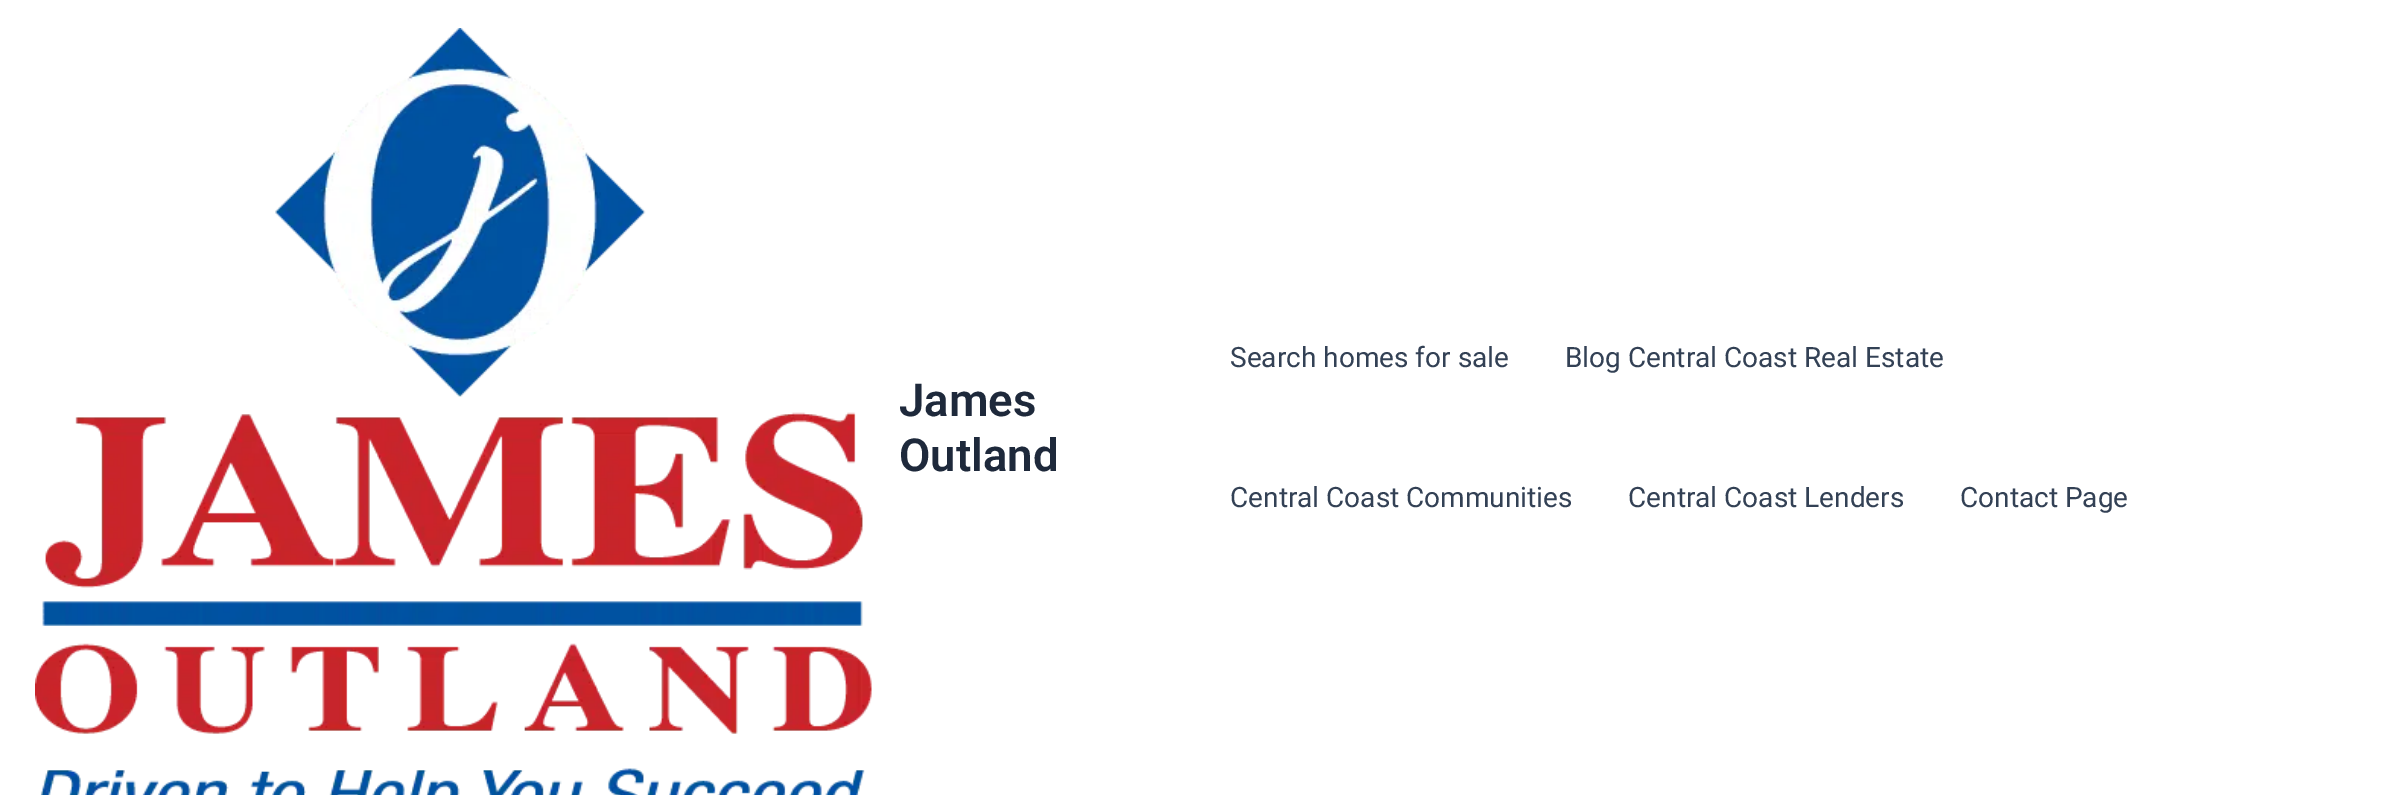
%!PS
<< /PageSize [2381 795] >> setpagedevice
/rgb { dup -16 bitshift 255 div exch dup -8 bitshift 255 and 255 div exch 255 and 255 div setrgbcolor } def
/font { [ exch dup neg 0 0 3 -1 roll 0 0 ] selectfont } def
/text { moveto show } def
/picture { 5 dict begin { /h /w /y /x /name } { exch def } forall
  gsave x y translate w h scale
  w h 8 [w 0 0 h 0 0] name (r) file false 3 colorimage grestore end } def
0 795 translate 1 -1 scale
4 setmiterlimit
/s1 { /Roboto-SemiBold 45.5 font 16#1E293B rgb } def
/s2 { /Roboto-Regular 28 font 16#334155 rgb } def
16#FFFFFF rgb
0 0 2381 795 rectfill
(pic1.raw) 35 28 837 767 picture
s1
(James) 899 416 text
(Outland) 899 471 text
s2
(Search homes for sale) 1230 367 text
(Blog Central Coast Real Estate) 1565 367 text
(Central Coast Communities) 1230 507 text
(Central Coast Lenders) 1628 507 text
(Contact Page) 1960 507 text
showpage
